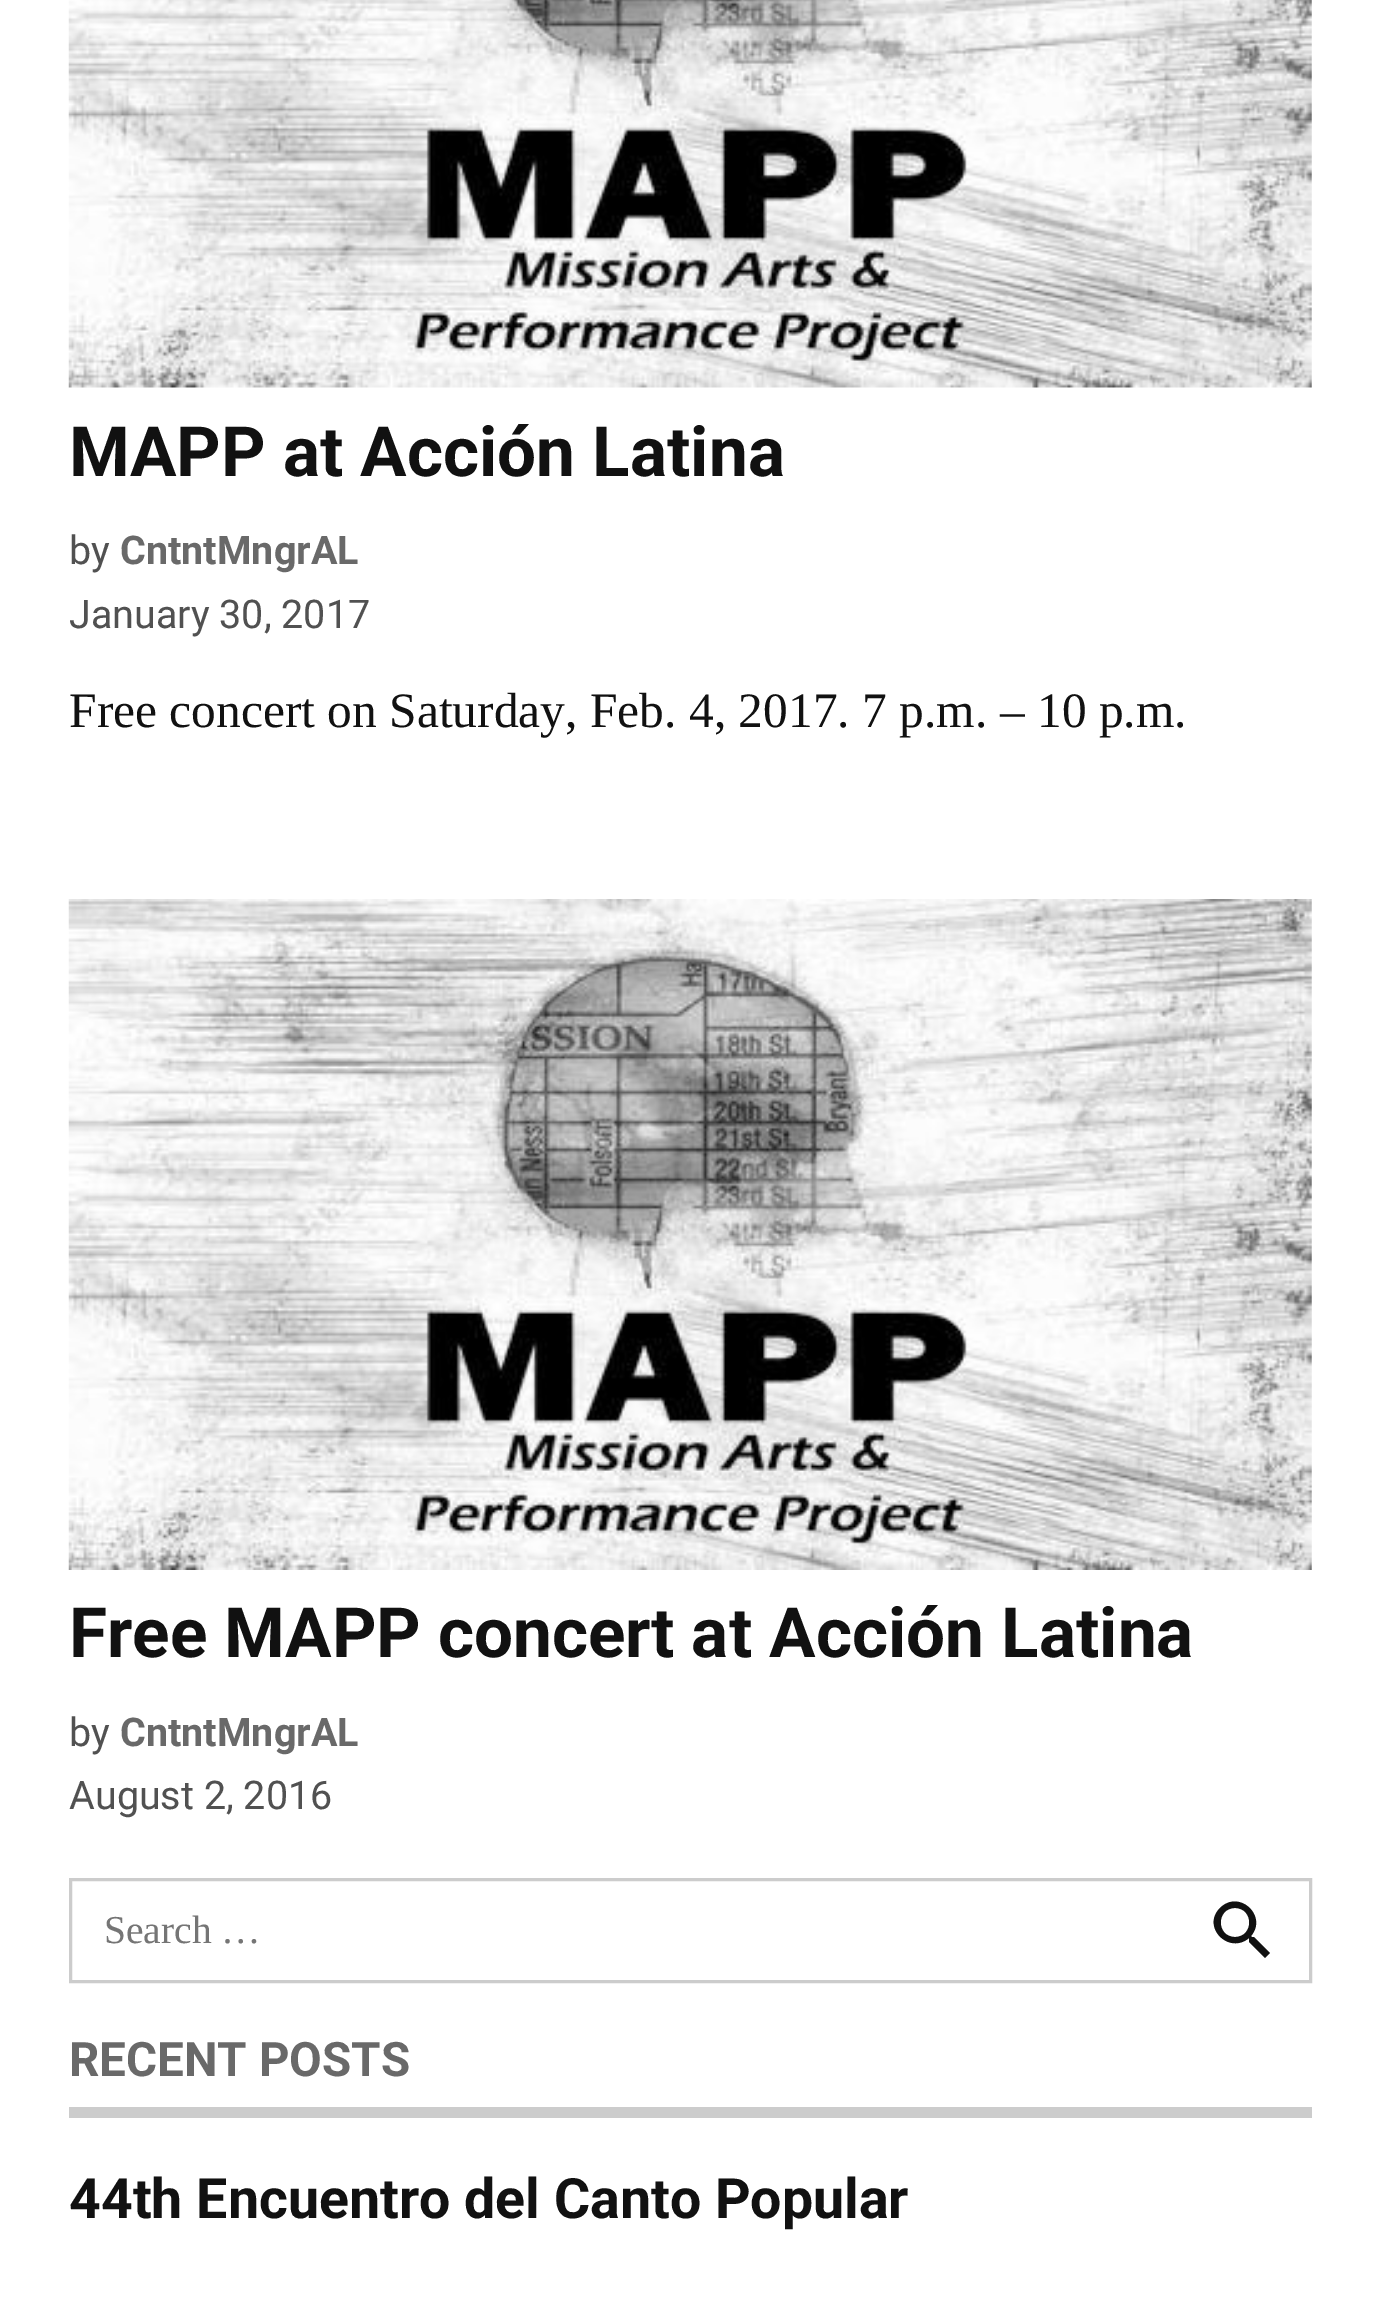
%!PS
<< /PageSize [1378 2297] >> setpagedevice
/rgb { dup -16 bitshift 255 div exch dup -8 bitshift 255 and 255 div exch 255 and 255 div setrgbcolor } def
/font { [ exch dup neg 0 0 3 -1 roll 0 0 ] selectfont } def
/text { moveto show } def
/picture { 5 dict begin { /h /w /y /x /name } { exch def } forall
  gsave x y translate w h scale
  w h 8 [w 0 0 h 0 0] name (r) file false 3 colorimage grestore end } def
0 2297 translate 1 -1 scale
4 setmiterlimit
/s1 { /Roboto-Bold 69.25 font 16#111111 rgb } def
/s2 { /Roboto-Regular 39.5 font 16#515151 rgb } def
/s3 { /Roboto-Bold 39.5 font 16#696969 rgb } def
/s4 { /LiberationSerif-Regular 49.5 font 16#111111 rgb } def
/s5 { /LiberationSerif-Regular 39.5 font 16#757575 rgb } def
/s6 { /Roboto-Bold 47.5 font 16#696969 rgb } def
/s7 { /Roboto-Bold 55.5 font 16#111111 rgb } def
16#FFFFFF rgb
0 0 1378 2297 rectfill
(pic1.raw) 68 0 1244 388 picture
s1
(MAPP at Acción Latina) 69 476 text
s2
(by) 69 564 text
s3
(CntntMngrAL) 120 564 text
s2
(January 30, 2017) 69 628 text
s4
(Free concert on Saturday, Feb. 4, 2017. 7 p.m. – 10 p.m.) 69 727 text
(pic2.raw) 68 899 1244 671 picture
s1
(Free MAPP concert at Acción Latina) 69 1657 text
s2
(by) 69 1746 text
s3
(CntntMngrAL) 120 1746 text
s2
(August 2, 2016) 69 1809 text
16#CCCCCC rgb
3 setlinewidth
70.5 1879.5 1240 102 rectstroke
s5
(Search …) 104 1943 text
16#111111 rgb
1254 1937 moveto 1252 1937 lineto 1251 1936 lineto 1268 1916 1239 1889 1220 1908 curveto 1201 1927 1229 1955 1249 1938 curveto 1249 1939 lineto 1249 1942 lineto 1265 1958 lineto 1270 1953 lineto closepath 1235 1937 moveto 1216 1937 1216 1908 1235 1908 curveto 1254 1908 1254 1937 1235 1937 curveto closepath fill
16#CCCCCC rgb
69 2107 1243 11 rectfill
s6
(RECENT POSTS) 69 2076 text
s7
(44th Encuentro del Canto Popular) 69 2218 text
showpage
